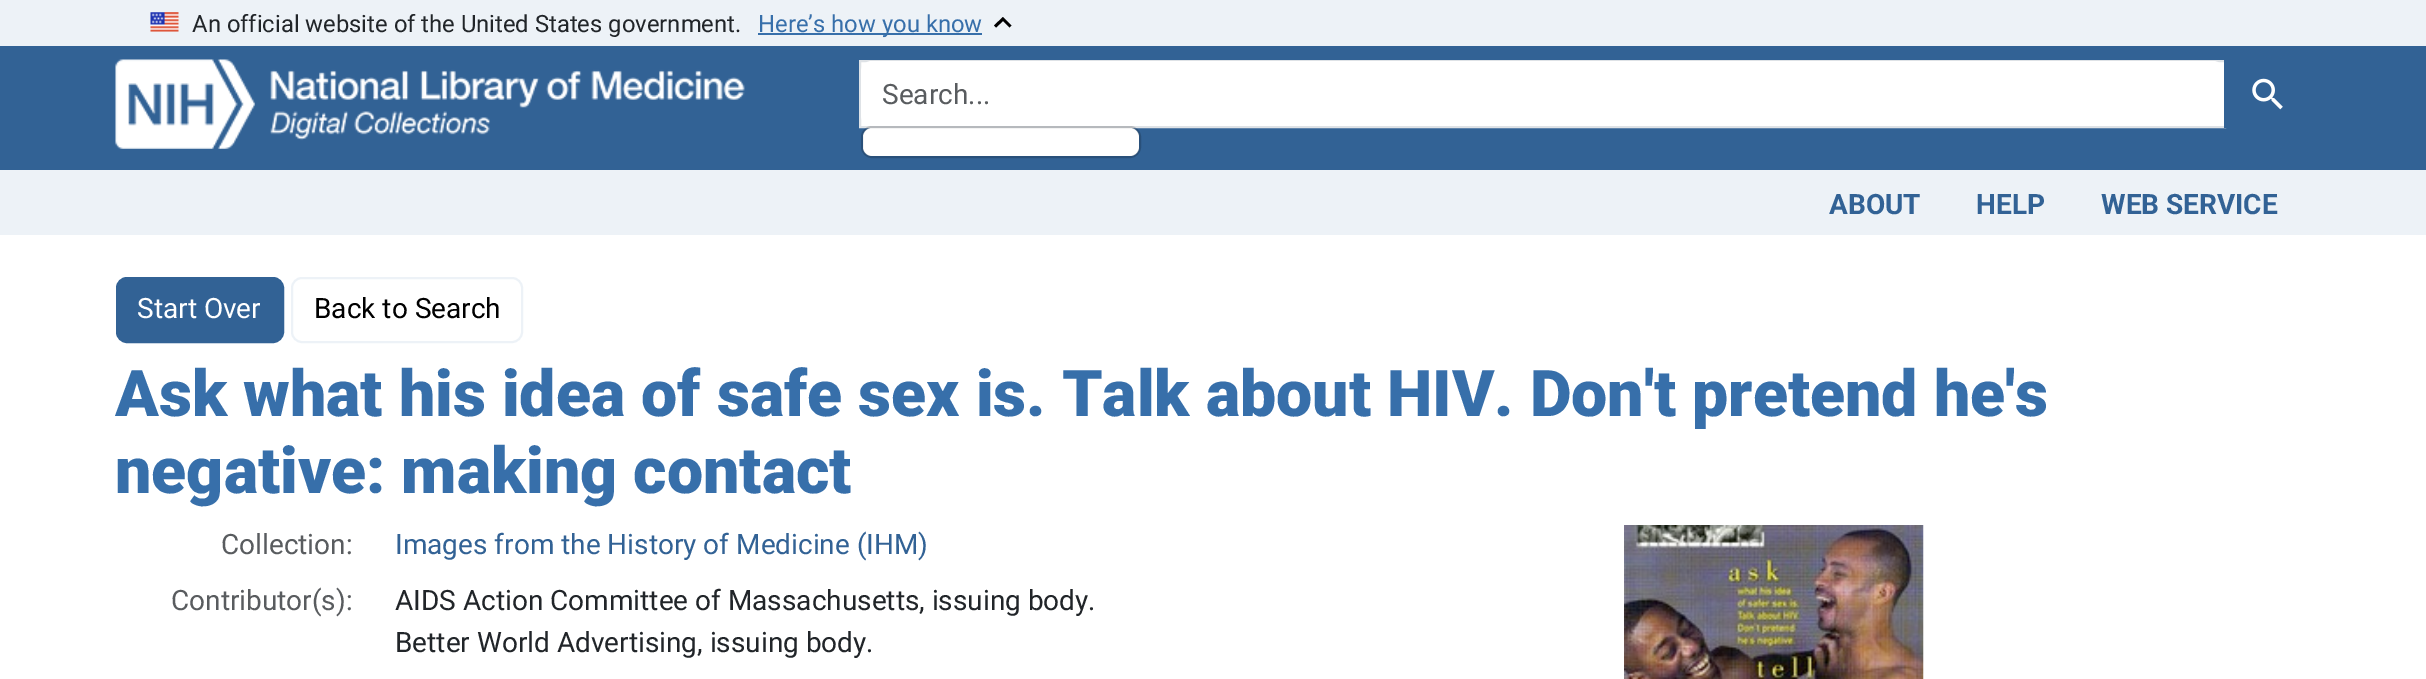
%!PS
<< /PageSize [2426 679] /PageUsesTransparency true >> setpagedevice
/rgb { dup -16 bitshift 255 div exch dup -8 bitshift 255 and 255 div exch 255 and 255 div setrgbcolor } def
/font { [ exch dup neg 0 0 3 -1 roll 0 0 ] selectfont } def
/text { moveto show } def
/alpha { dup .setfillconstantalpha .setstrokeconstantalpha } def
/roundrect { 5 dict begin { /r /h /w /y /x } { exch def } forall
  x r add y moveto x w add y 2 copy h add r arct x w add y h add x 1 index r arct
  x y h add x y r arct x y 2 copy exch w add exch r arct closepath end } def
/picture { 5 dict begin { /h /w /y /x /name } { exch def } forall
  gsave x y translate w h scale
  w h 8 [w 0 0 h 0 0] name (r) file false 3 colorimage grestore end } def
0 .pushpdf14devicefilter
0 679 translate 1 -1 scale
4 setmiterlimit
/s1 { /Roboto-Regular 23.8 font 16#212529 rgb } def
/s2 { /Roboto-Regular 23.8 font 16#376FAA rgb } def
/s3 { /Roboto-Regular 28 font 16#595C5F rgb } def
/s4 { /Roboto-Bold 28 font 16#326295 rgb } def
/s5 { /Roboto-Regular 28 font 16#FFFFFF rgb } def
/s6 { /Roboto-Regular 28 font 16#000000 rgb } def
/s7 { /Roboto-Black 64.4 font 16#376FAA rgb } def
/s8 { /Roboto-Regular 28 font 16#326295 rgb } def
/s9 { /Roboto-Regular 28 font 16#212529 rgb } def
16#FFFFFF rgb
0 0 2426 679 rectfill
16#EDF2F7 rgb
0 0 2426 46 rectfill
(pic1.raw) 150 12 29 20 picture
s1
(An official website of the United States government.) 192 32 text
16#376FAA rgb
758 33 224 2 rectfill
(Here’s how you know) 758 32 text
16#000000 rgb
1003 17 moveto 994 25.5 lineto 996 27.5 lineto 1003 21 lineto 1009.5 27.5 lineto 1011.5 25.5 lineto closepath fill
16#326295 rgb
0 46 2426 124 rectfill
(pic2.raw) 115 59 630 90 picture
16#FFFFFF rgb
860 61 moveto 2225 61 lineto 2225 127 lineto 860 127 lineto closepath gsave fill grestore
16#DEE2E6 rgb
2 setlinewidth
stroke
16#FFFFFF rgb
861 61 1363 65 11 roundrect fill
s3
(Search...) 882 104 text
16#FFFFFF rgb
863 128 276 28 9 roundrect fill
0.18 alpha
16#000000 rgb
862 127 278 30 10 roundrect stroke
1 alpha
16#326295 rgb
2224 60 moveto 2301 60 lineto 2307 60 2312 65 2312 71 curveto 2312 117 lineto 2312 123 2307 128 2301 128 curveto 2224 128 lineto closepath fill
(pic3.raw) 2252 78 31 32 picture
16#EDF2F7 rgb
0 170 2426 65 rectfill
s4
(ABOUT) 1829 214 text
(HELP) 1976 214 text
(WEB SERVICE) 2101 214 text
117 278 166 64 10 roundrect gsave fill grestore
stroke
s5
(Start Over) 137 318 text
16#EDF2F7 rgb
292 278 230 64 10 roundrect stroke
s6
(Back to Search) 314 318 text
s7
(Ask what his idea of safe sex is. Talk about HIV. Don't pretend he's) 115 416 text
(negative: making contact) 115 493 text
s3
(Collection:) 221 554 text
s8
(Images from the History of Medicine \(IHM\)) 395 554 text
s3
(Contributor\(s\):) 171 610 text
s9
(AIDS Action Committee of Massachusetts, issuing body.) 395 610 text
(Better World Advertising, issuing body.) 395 652 text
(pic4.raw) 1624 525 300 154 picture
.poppdf14devicefilter showpage
